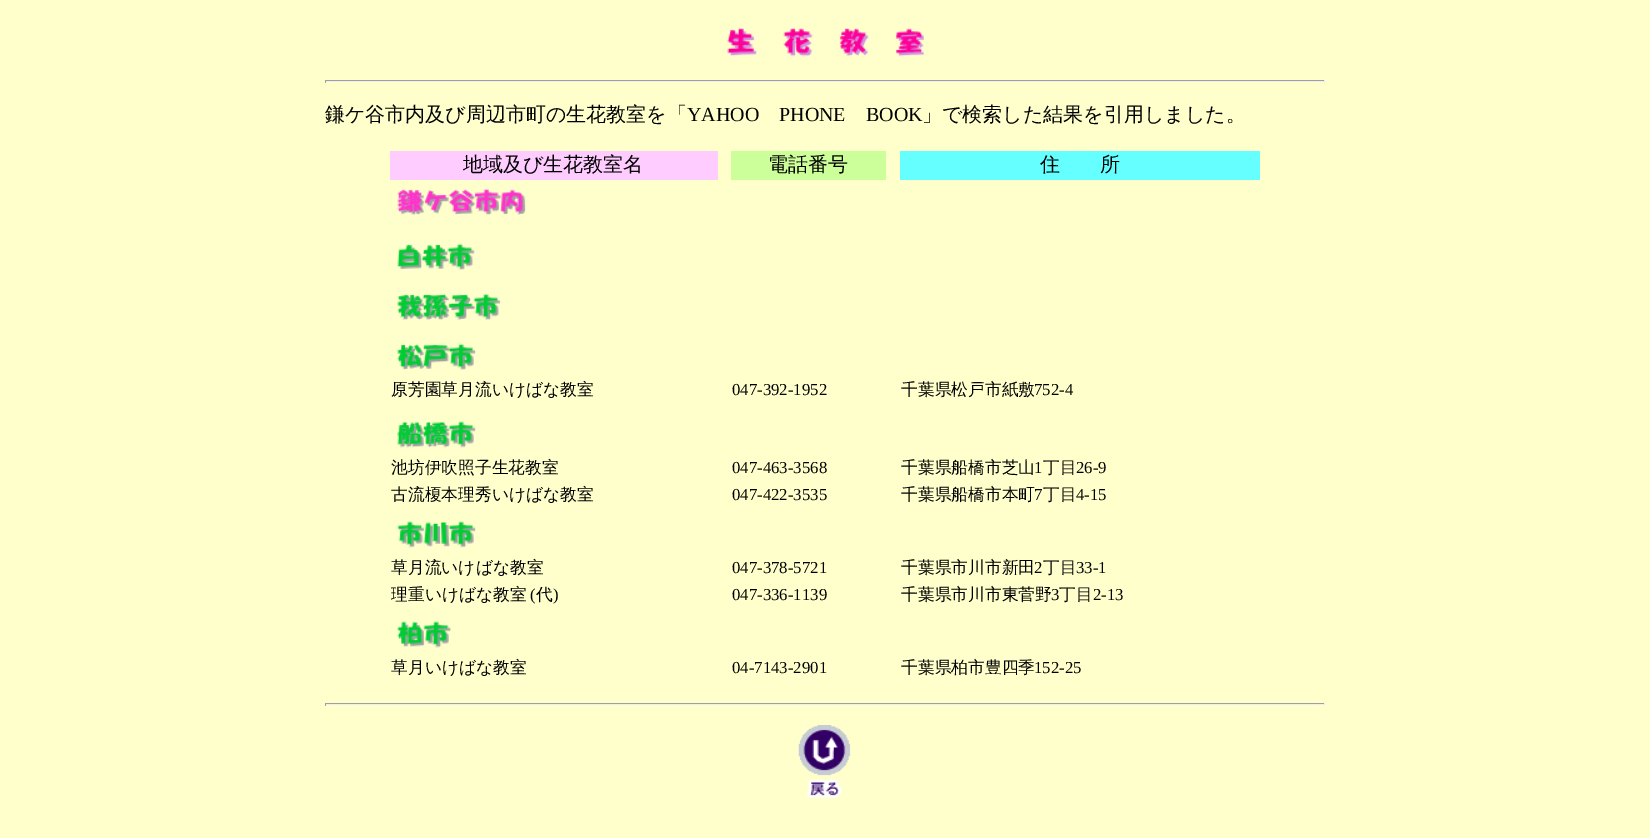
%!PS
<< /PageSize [1650 838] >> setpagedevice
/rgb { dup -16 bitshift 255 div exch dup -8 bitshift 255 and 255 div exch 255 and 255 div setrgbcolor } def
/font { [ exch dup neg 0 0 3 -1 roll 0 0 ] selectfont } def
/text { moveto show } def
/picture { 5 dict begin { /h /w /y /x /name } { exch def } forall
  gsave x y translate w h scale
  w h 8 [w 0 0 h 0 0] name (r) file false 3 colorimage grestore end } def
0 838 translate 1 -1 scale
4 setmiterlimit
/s1 { /WenQuanYiZenHei-Medium 20 font 16#000000 rgb } def
/s2 { /LiberationSerif-Regular 20 font 16#000000 rgb } def
/s3 { /WenQuanYiZenHei-Medium 16.75 font 16#000000 rgb } def
/s4 { /LiberationSerif-Regular 16.75 font 16#000000 rgb } def
16#FFFFCC rgb
0 0 1650 838 rectfill
(pic1.raw) 727 28 197 29 picture
16#9F9F9F rgb
325 80 1000 1 rectfill
16#EEEEEE rgb
1324 80 1 3 rectfill
325 81 1000 1 rectfill
16#9F9F9F rgb
325 80 1 3 rectfill
s1
(鎌ケ谷市内及び周辺市町の生花教室を「) 325 121 text
s2
(YAHOO) 687 121 text
(PHONE) 779 121 text
(BOOK) 866 121 text
s1
(」で検索した結果を引用しました。) 922 121 text
16#FFCCFF rgb
390 151 328 29 rectfill
s1
(地域及び生花教室名) 463 171 text
16#CCFF99 rgb
731 151 155 29 rectfill
s1
(電話番号) 768 171 text
16#66FFFF rgb
900 151 360 29 rectfill
s1
(住　　所) 1040 171 text
(pic2.raw) 397 188 129 27 picture
(pic3.raw) 397 243 78 27 picture
(pic4.raw) 397 293 104 27 picture
(pic5.raw) 397 343 79 27 picture
s3
(原芳園草月流いけばな教室) 391 395 text
s4
(047-392-1952) 732 395 text
s3
(千葉県松戸市紙敷) 901 395 text
s4
(752-4) 1034 395 text
(pic6.raw) 397 421 79 27 picture
s3
(池坊伊吹照子生花教室) 391 473 text
s4
(047-463-3568) 732 473 text
s3
(千葉県船橋市芝山) 901 473 text
s4
(1) 1034 473 text
s3
(丁目) 1043 473 text
s4
(26-9) 1076 473 text
s3
(古流榎本理秀いけばな教室) 391 500 text
s4
(047-422-3535) 732 500 text
s3
(千葉県船橋市本町) 901 500 text
s4
(7) 1034 500 text
s3
(丁目) 1043 500 text
s4
(4-15) 1076 500 text
(pic7.raw) 397 521 79 27 picture
s3
(草月流いけばな教室) 391 573 text
s4
(047-378-5721) 732 573 text
s3
(千葉県市川市新田) 901 573 text
s4
(2) 1034 573 text
s3
(丁目) 1043 573 text
s4
(33-1) 1076 573 text
s3
(理重いけばな教室) 391 600 text
s4
(\() 530 600 text
s3
(代) 536 600 text
s4
(\)) 553 600 text
(047-336-1139) 732 600 text
s3
(千葉県市川市東菅野) 901 600 text
s4
(3) 1051 600 text
s3
(丁目) 1059 600 text
s4
(2-13) 1093 600 text
(pic8.raw) 397 621 55 27 picture
s3
(草月いけばな教室) 391 673 text
s4
(04-7143-2901) 732 673 text
s3
(千葉県柏市豊四季) 901 673 text
s4
(152-25) 1034 673 text
16#9F9F9F rgb
325 703 1000 1 rectfill
16#EEEEEE rgb
1324 703 1 3 rectfill
325 704 1000 1 rectfill
16#9F9F9F rgb
325 703 1 3 rectfill
(pic9.raw) 798 725 53 73 picture
showpage
